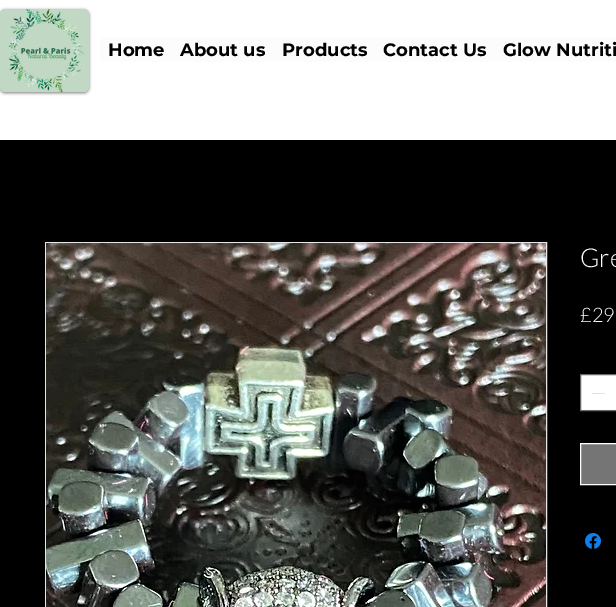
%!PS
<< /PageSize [616 607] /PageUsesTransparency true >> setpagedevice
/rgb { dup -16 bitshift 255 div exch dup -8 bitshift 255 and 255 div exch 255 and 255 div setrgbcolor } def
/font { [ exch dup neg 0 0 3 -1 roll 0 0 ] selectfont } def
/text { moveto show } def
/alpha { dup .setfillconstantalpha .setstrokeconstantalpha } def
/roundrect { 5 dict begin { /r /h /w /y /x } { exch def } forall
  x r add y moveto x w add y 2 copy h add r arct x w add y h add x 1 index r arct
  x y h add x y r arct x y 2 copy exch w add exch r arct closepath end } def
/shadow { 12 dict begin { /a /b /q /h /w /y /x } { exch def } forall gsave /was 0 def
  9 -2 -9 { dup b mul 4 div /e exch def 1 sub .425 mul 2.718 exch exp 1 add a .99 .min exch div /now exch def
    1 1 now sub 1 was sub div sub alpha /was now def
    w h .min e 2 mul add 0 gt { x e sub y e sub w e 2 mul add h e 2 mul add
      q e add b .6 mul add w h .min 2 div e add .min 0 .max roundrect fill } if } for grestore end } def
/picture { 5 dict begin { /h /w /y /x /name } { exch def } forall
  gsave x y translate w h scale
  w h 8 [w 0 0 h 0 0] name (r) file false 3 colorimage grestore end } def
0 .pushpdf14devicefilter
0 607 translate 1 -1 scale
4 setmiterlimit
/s1 { /Montserrat-Bold 18 font 16#000000 rgb } def
/s2 { /Lato-Light 26 font 16#FFFFFF rgb } def
/s3 { /Lato-Light 20 font 16#FFFFFF rgb } def
16#000000 rgb
0 0 616 607 rectfill
16#FFFFFF rgb
0 0 616 140 rectfill
16#000000 rgb
0 10 89 83 5 1.5 0.5 shadow
16#C0D8C4 rgb
0 9 89 83 5 roundrect fill
(pic1.raw) 8 9 77 83 picture
16#FCFCFC rgb
100 38 516 24 rectfill
s1
(Home) 108 56 text
(About us) 180 56 text
(Products) 282 56 text
(Contact Us) 383 56 text
(Glow Nutriti) 503 56 text
16#E8E6E6 rgb
45.5 242.5 501 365 rectstroke
(pic2.raw) 46 243 500 364 picture
s2
(Gre) 580 267 text
s3
(£29) 580 322 text
580.5 374.5 moveto 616.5 374.5 lineto 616.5 410.5 lineto 580.5 410.5 lineto closepath gsave fill grestore
16#666666 rgb
stroke
16#E3E3E3 rgb
592 393 13 1 rectfill
16#757575 rgb
580.5 443.5 moveto 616.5 443.5 lineto 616.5 484.5 lineto 580.5 484.5 lineto closepath gsave fill grestore
16#FFFFFF rgb
stroke
(pic3.raw) 585 533 16 16 picture
.poppdf14devicefilter showpage
